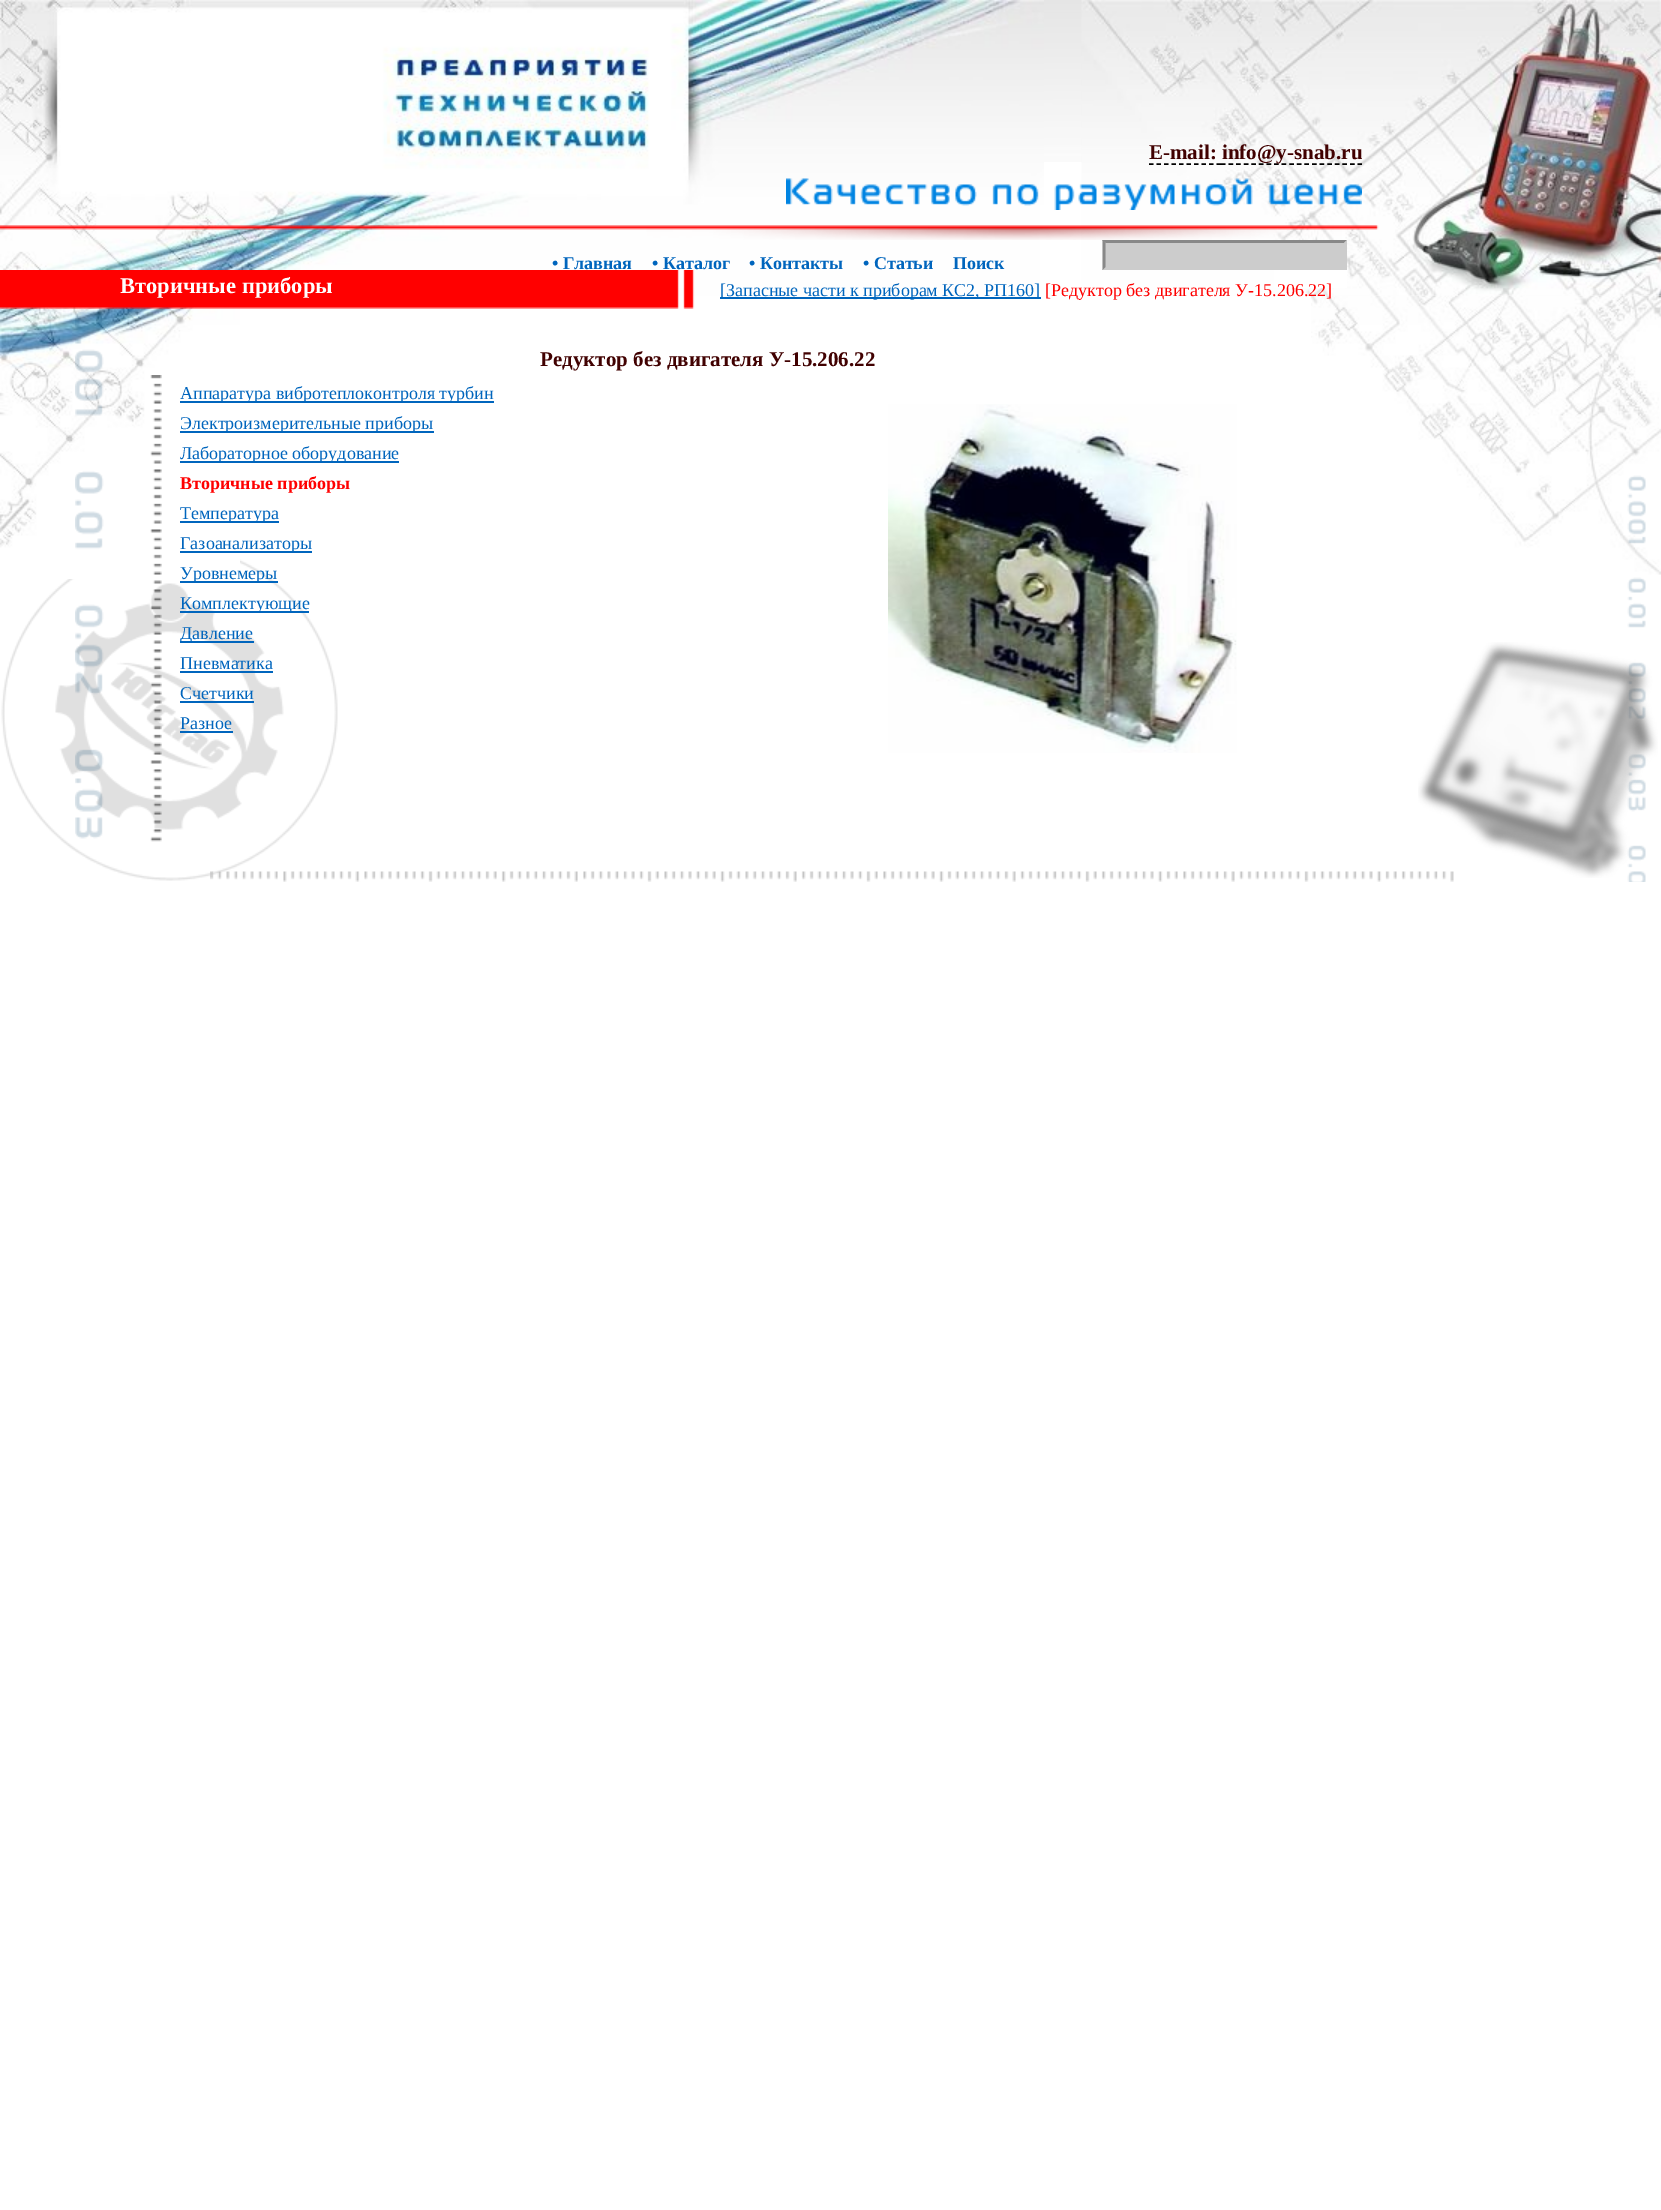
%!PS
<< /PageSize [1661 2210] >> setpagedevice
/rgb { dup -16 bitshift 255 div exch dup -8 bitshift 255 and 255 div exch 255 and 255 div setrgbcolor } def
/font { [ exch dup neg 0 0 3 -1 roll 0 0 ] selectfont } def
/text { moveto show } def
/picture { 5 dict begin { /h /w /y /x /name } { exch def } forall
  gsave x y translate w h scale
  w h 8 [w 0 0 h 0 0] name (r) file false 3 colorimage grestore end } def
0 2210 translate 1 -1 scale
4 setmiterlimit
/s1 { /LiberationSerif-Bold 21 font 16#410101 rgb } def
/s2 { /LiberationSerif-Bold 18 font 16#0065BD rgb } def
/s3 { /LiberationSerif-Bold 22.5 font 16#FFFFFF rgb } def
/s4 { /LiberationSerif-Regular 18 font 16#0065BD rgb } def
/s5 { /LiberationSerif-Regular 18 font 16#FF0000 rgb } def
/s6 { /LiberationSerif-Bold 18 font 16#FF0000 rgb } def
16#FFFFFF rgb
0 0 1661 2210 rectfill
(pic1.raw) 0 0 1044 296 picture
(pic2.raw) 1044 0 38 162 picture
(pic9.raw) 1311 295 350 280 picture
(pic3.raw) 1081 0 580 296 picture
16#000000 rgb
1.5 setlinewidth
[4.5 3] 0 setdash
1149 164 moveto 1221 164 lineto stroke
[4.5 3.09] 0 setdash
1221 164 moveto 1362 164 lineto stroke
s1
(E-mail: info@y-snab.ru) 1149 159 text
(pic4.raw) 786 178 576 32 picture
(pic5.raw) 0 225 1379 15 picture
16#FFFFFF rgb
1274 240 73 48 rectfill
s2
(• Главная) 552 269 text
(• Каталог) 652 269 text
(• Контакты) 749 269 text
(• Статьи) 863 269 text
(Поиск) 953 269 text
16#CCCCCC rgb
1103 240 244 30 rectfill
16#888888 rgb
1102 240 moveto 1347 240 lineto 1344 243 lineto 1106 243 lineto closepath fill
16#CCCCCC rgb
1347 240 moveto 1347 270 lineto 1344 267 lineto 1344 243 lineto closepath fill
1347 270 moveto 1102 270 lineto 1106 267 lineto 1344 267 lineto closepath fill
16#888888 rgb
1102.5 270 moveto 1102.5 240 lineto 1105.5 243 lineto 1105.5 267 lineto closepath fill
(pic7.raw) 1 559 337 322 picture
(pic8.raw) 0 307 240 272 picture
(pic6.raw) 0 270 695 39 picture
s3
(Вторичные приборы) 120 293 text
16#0065BD rgb
720 297 321 2 rectfill
s4
([Запасные части к приборам КС2, РП160]) 720 296 text
s5
([Редуктор без двигателя У-15.206.22]) 1045 296 text
(pic10.raw) 75 310 29 529 picture
(pic11.raw) 1627 475 19 407 picture
(pic12.raw) 1418 642 240 236 picture
s1
(Редуктор без двигателя У-15.206.22) 540 366 text
(pic13.raw) 888 404 349 349 picture
(pic14.raw) 210 871 1244 11 picture
(pic15.raw) 150 375 12 467 picture
16#0065BD rgb
180 401 314 2 rectfill
s4
(Аппаратура вибротеплоконтроля турбин) 180 399 text
180 431 254 2 rectfill
(Электроизмерительные приборы) 180 429 text
180 461 219 2 rectfill
(Лабораторное оборудование) 180 459 text
s6
(Вторичные приборы) 180 489 text
16#0065BD rgb
180 521 99 2 rectfill
s4
(Температура) 180 519 text
180 551 132 2 rectfill
(Газоанализаторы) 180 549 text
180 581 98 2 rectfill
(Уровнемеры) 180 579 text
180 611 129 2 rectfill
(Комплектующие) 180 609 text
180 641 74 2 rectfill
(Давление) 180 639 text
(Пневматика) 180 669 text
180 671 93 2 rectfill
(Счетчики) 180 699 text
180 701 74 2 rectfill
(Разное) 180 729 text
180 731 53 2 rectfill
showpage
